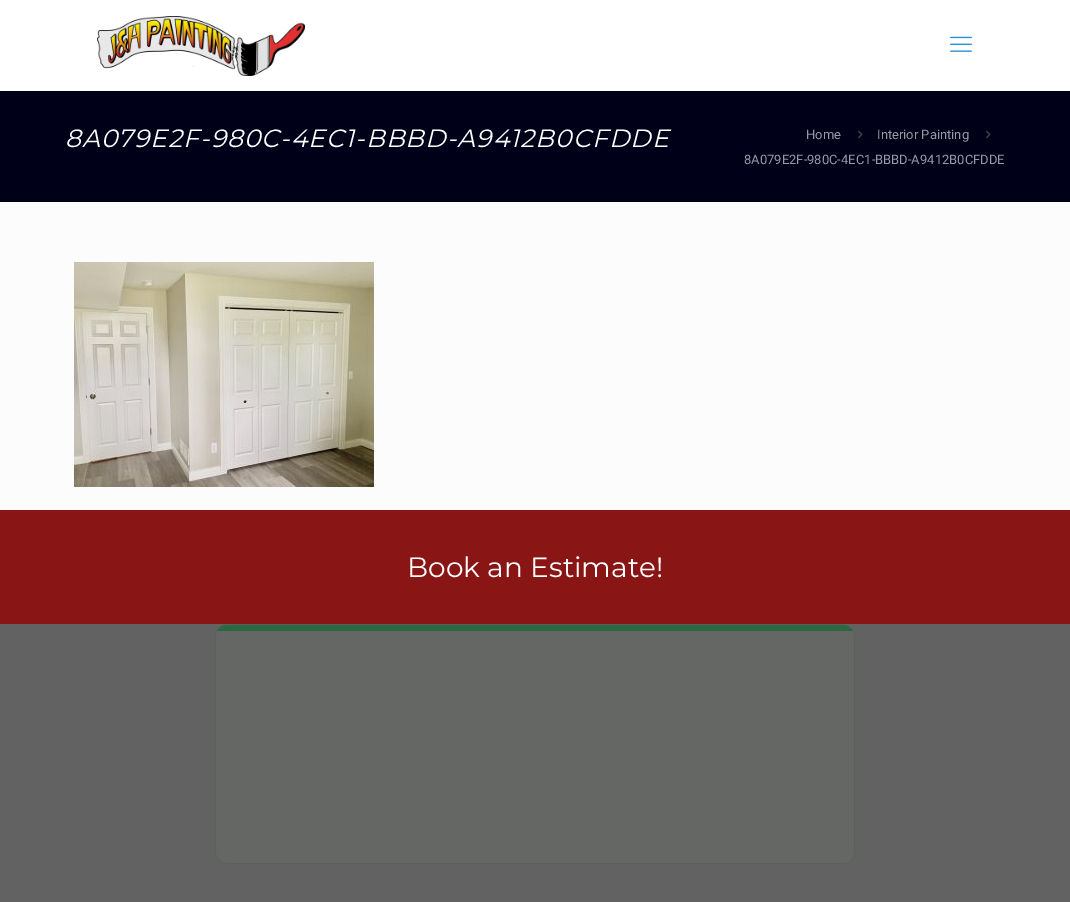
%!PS
<< /PageSize [1070 902] >> setpagedevice
/rgb { dup -16 bitshift 255 div exch dup -8 bitshift 255 and 255 div exch 255 and 255 div setrgbcolor } def
/font { [ exch dup neg 0 0 3 -1 roll 0 0 ] selectfont } def
/text { moveto show } def
/picture { 5 dict begin { /h /w /y /x /name } { exch def } forall
  gsave x y translate w h scale
  w h 8 [w 0 0 h 0 0] name (r) file false 3 colorimage grestore end } def
0 902 translate 1 -1 scale
4 setmiterlimit
/s1 { /Roboto-Regular 13 font 16#9999A3 rgb } def
/s2 { /Montserrat-Thin 28 font 16#FFFFFF rgb } def
16#FCFCFC rgb
0 0 1070 902 rectfill
16#000119 rgb
0 91 1070 111 rectfill
16#FFFFFF rgb
0 0 1070 91 rectfill
(pic1.raw) 97 16 208 60 picture
(pic2.raw) 950 36 22 16 picture
/Montserrat-ThinItalic 25 font
65 147 moveto 1 0 (8A079E2F-980C-4EC1-BBBD-A9412B0CFDDE) ashow
s1
(Home) 806 139 text
(pic3.raw) 858 130 5 9 picture
(Interior Painting) 877 139 text
(pic3.raw) 986 130 5 9 picture
(8A079E2F-980C-4EC1-BBBD-A9412B0CFDDE) 744 164 text
(pic4.raw) 74 262 300 225 picture
16#8A1515 rgb
0 510 1070 114 rectfill
s2
(Book an Estimate!) 407 577 text
(pic5.raw) 0 624 1070 278 picture
showpage
